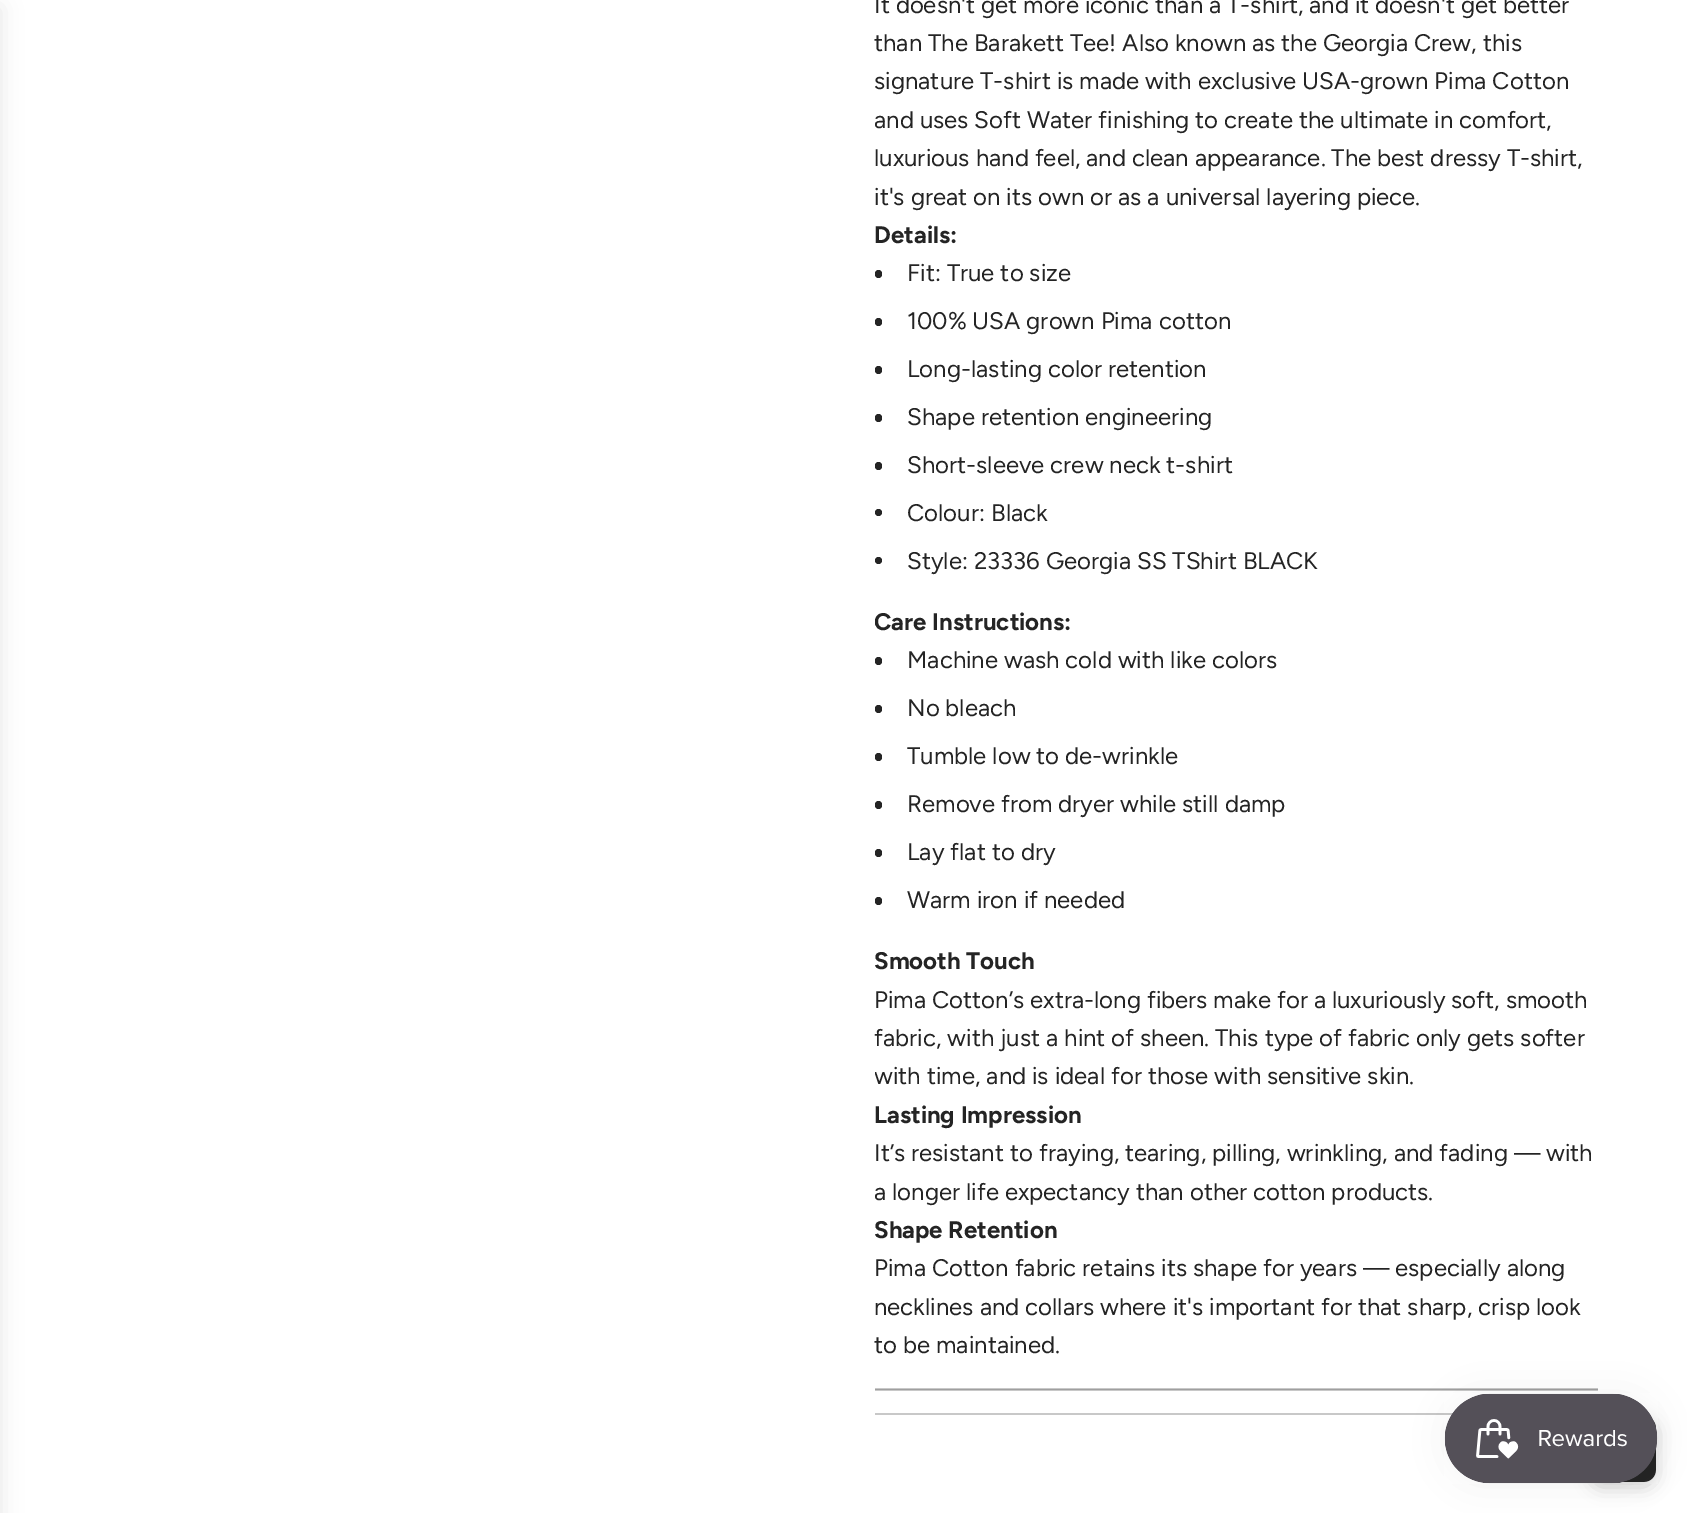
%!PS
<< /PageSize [1687 1513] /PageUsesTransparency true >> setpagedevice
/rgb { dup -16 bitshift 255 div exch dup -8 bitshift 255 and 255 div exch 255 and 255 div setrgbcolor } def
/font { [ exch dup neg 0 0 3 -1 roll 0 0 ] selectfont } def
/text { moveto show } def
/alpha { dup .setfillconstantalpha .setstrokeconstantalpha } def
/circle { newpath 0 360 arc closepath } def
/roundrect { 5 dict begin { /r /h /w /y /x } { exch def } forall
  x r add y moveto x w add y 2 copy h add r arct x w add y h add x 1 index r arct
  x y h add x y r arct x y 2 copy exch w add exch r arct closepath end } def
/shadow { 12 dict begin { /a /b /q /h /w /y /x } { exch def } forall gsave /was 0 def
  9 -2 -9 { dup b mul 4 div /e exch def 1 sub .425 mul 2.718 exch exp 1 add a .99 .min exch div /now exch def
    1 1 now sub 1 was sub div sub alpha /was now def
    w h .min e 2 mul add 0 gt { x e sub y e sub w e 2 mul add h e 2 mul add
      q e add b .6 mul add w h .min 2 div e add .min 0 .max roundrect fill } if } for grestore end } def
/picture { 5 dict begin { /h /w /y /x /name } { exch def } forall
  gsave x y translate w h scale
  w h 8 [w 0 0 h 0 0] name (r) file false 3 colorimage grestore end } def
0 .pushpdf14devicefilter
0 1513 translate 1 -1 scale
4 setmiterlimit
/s1 { /Figtree-Regular 24 font 16#242424 rgb } def
/s2 { /Figtree-Bold 24 font 16#242424 rgb } def
16#FFFFFF rgb
0 0 1687 1513 rectfill
16#C8C8C8 rgb
875 1388 723 1 rectfill
16#000000 rgb
-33 8 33 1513 0 11 0.1 shadow
s1
(It doesn't get more iconic than a T-shirt, and it doesn't get better) 874 13 text
(than The Barakett Tee! Also known as the Georgia Crew, this) 874 51 text
(signature T-shirt is made with exclusive USA-grown Pima Cotton) 874 89 text
gsave
875 0 723 1388 rectclip
(and uses Soft Water finishing to create the ultimate in comfort,) 874 128 text
grestore
(luxurious hand feel, and clean appearance. The best dressy T-shirt,) 874 166 text
(it's great on its own or as a universal layering piece.) 874 205 text
s2
(Details:) 874 243 text
875 270 7 8 3.5 roundrect fill
s1
(Fit: True to size) 907 281 text
875 318 7 8 3.5 roundrect fill
(100% USA grown Pima cotton) 907 329 text
875 366 7 8 3.5 roundrect fill
(Long-lasting color retention) 907 377 text
875 414 7 8 3.5 roundrect fill
(Shape retention engineering) 907 425 text
875 462 7 8 3.5 roundrect fill
(Short-sleeve crew neck t-shirt) 907 473 text
878.5 512.5 3.5 circle fill
(Colour: Black) 907 521 text
878.5 560.5 3.5 circle fill
(Style: 23336 Georgia SS TShirt BLACK) 907 569 text
gsave
875 0 723 1388 rectclip
s2
(Care Instructions:) 874 630 text
grestore
875 657 7 8 3.5 roundrect fill
(Machine wash cold with like colors) 907 668 text
875 705 7 8 3.5 roundrect fill
(No bleach) 907 716 text
875 753 7 8 3.5 roundrect fill
(Tumble low to de-wrinkle) 907 764 text
875 801 7 8 3.5 roundrect fill
(Remove from dryer while still damp) 907 812 text
875 849 7 8 3.5 roundrect fill
(Lay flat to dry) 907 860 text
875 897 7 8 3.5 roundrect fill
(Warm iron if needed) 907 908 text
s2
(Smooth Touch) 874 969 text
s1
(Pima Cotton’s extra-long fibers make for a luxuriously soft, smooth) 874 1008 text
(fabric, with just a hint of sheen. This type of fabric only gets softer) 874 1046 text
gsave
875 0 723 1388 rectclip
(with time, and is ideal for those with sensitive skin.) 874 1084 text
grestore
s2
(Lasting Impression) 874 1123 text
s1
(It’s resistant to fraying, tearing, pilling, wrinkling, and fading — with) 874 1161 text
gsave
875 0 723 1388 rectclip
(a longer life expectancy than other cotton products.) 874 1200 text
grestore
s2
(Shape Retention) 874 1238 text
s1
(Pima Cotton fabric retains its shape for years — especially along) 874 1276 text
(necklines and collars where it's important for that sharp, crisp look) 874 1315 text
(to be maintained.) 874 1353 text
16#C8C8C8 rgb
875 1390 723 1 rectfill
16#9F9F9F rgb
875 1389 723 1 rectfill
16#C8C8C8 rgb
875 1413 578 2 rectfill
16#000000 rgb
1590 1421 66 66 12 9 0.18 shadow
16#242424 rgb
1590 1416 66 66 12 roundrect fill
16#000000 rgb
1445 1394 213 90 45 19 0.05 shadow
(pic1.raw) 1444 1393 214 91 picture
.poppdf14devicefilter showpage
